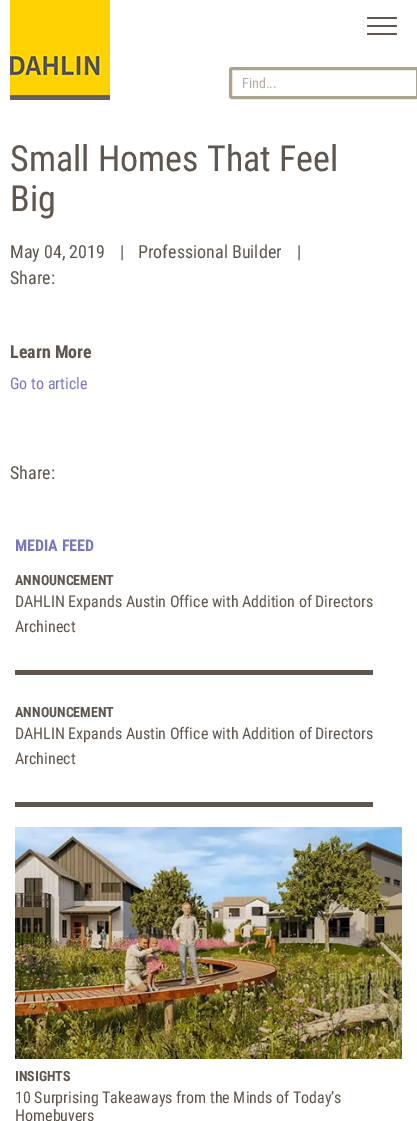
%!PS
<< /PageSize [417 1121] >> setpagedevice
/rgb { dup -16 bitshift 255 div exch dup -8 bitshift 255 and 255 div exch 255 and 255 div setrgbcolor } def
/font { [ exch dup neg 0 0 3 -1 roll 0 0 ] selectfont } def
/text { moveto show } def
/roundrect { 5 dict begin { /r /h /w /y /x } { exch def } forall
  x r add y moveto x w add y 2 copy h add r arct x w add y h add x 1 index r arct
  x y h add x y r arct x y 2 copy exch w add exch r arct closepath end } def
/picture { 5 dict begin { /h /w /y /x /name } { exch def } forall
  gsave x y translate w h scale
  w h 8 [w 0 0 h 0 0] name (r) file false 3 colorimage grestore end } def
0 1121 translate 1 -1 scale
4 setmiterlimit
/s1 { /RobotoCondensed-Regular 14 font 16#B4ACA5 rgb } def
/s2 { /RobotoCondensed-Regular 36 font 16#5F574F rgb } def
/s3 { /RobotoCondensed-Regular 18 font 16#5F574F rgb } def
/s4 { /RobotoCondensed-Bold 18 font 16#5F574F rgb } def
/s5 { /RobotoCondensed-Regular 16 font 16#7977C2 rgb } def
/s6 { /RobotoCondensed-Bold 16 font 16#7977C2 rgb } def
/s7 { /RobotoCondensed-Bold 14 font 16#5F574F rgb } def
/s8 { /RobotoCondensed-Regular 16 font 16#5F574F rgb } def
16#FFFFFF rgb
0 0 417 1121 rectfill
(pic1.raw) 10 0 100 100 picture
16#5F574F rgb
367 17 30 2 1 roundrect fill
367 25 30 2 1 roundrect fill
367 33 30 2 1 roundrect fill
16#ABA48F rgb
3 setlinewidth
230.5 68.5 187 29 1.5 roundrect stroke
s1
(Find...) 242 88 text
s2
(Small Homes That Feel) 10 171 text
(Big) 10 211 text
s3
(May 04, 2019) 10 258 text
(|) 120 258 text
(Professional Builder) 138 258 text
(|) 297 258 text
(Share:) 10 284 text
s4
(Learn More) 10 358 text
s5
(Go to article) 10 389 text
s3
(Share:) 10 479 text
s6
(MEDIA FEED) 15 551 text
16#5F574F rgb
15 670 358 5 rectfill
s7
(ANNOUNCEMENT) 15 585 text
s8
(DAHLIN Expands Austin Office with Addition of Directors) 15 607 text
(Archinect) 15 632 text
15 802 358 5 rectfill
s7
(ANNOUNCEMENT) 15 717 text
s8
(DAHLIN Expands Austin Office with Addition of Directors) 15 739 text
(Archinect) 15 764 text
(pic2.raw) 15 827 387 232 picture
s7
(INSIGHTS) 15 1081 text
s8
(10 Surprising Takeaways from the Minds of Today’s) 15 1103 text
(Homebuyers) 15 1121 text
showpage
